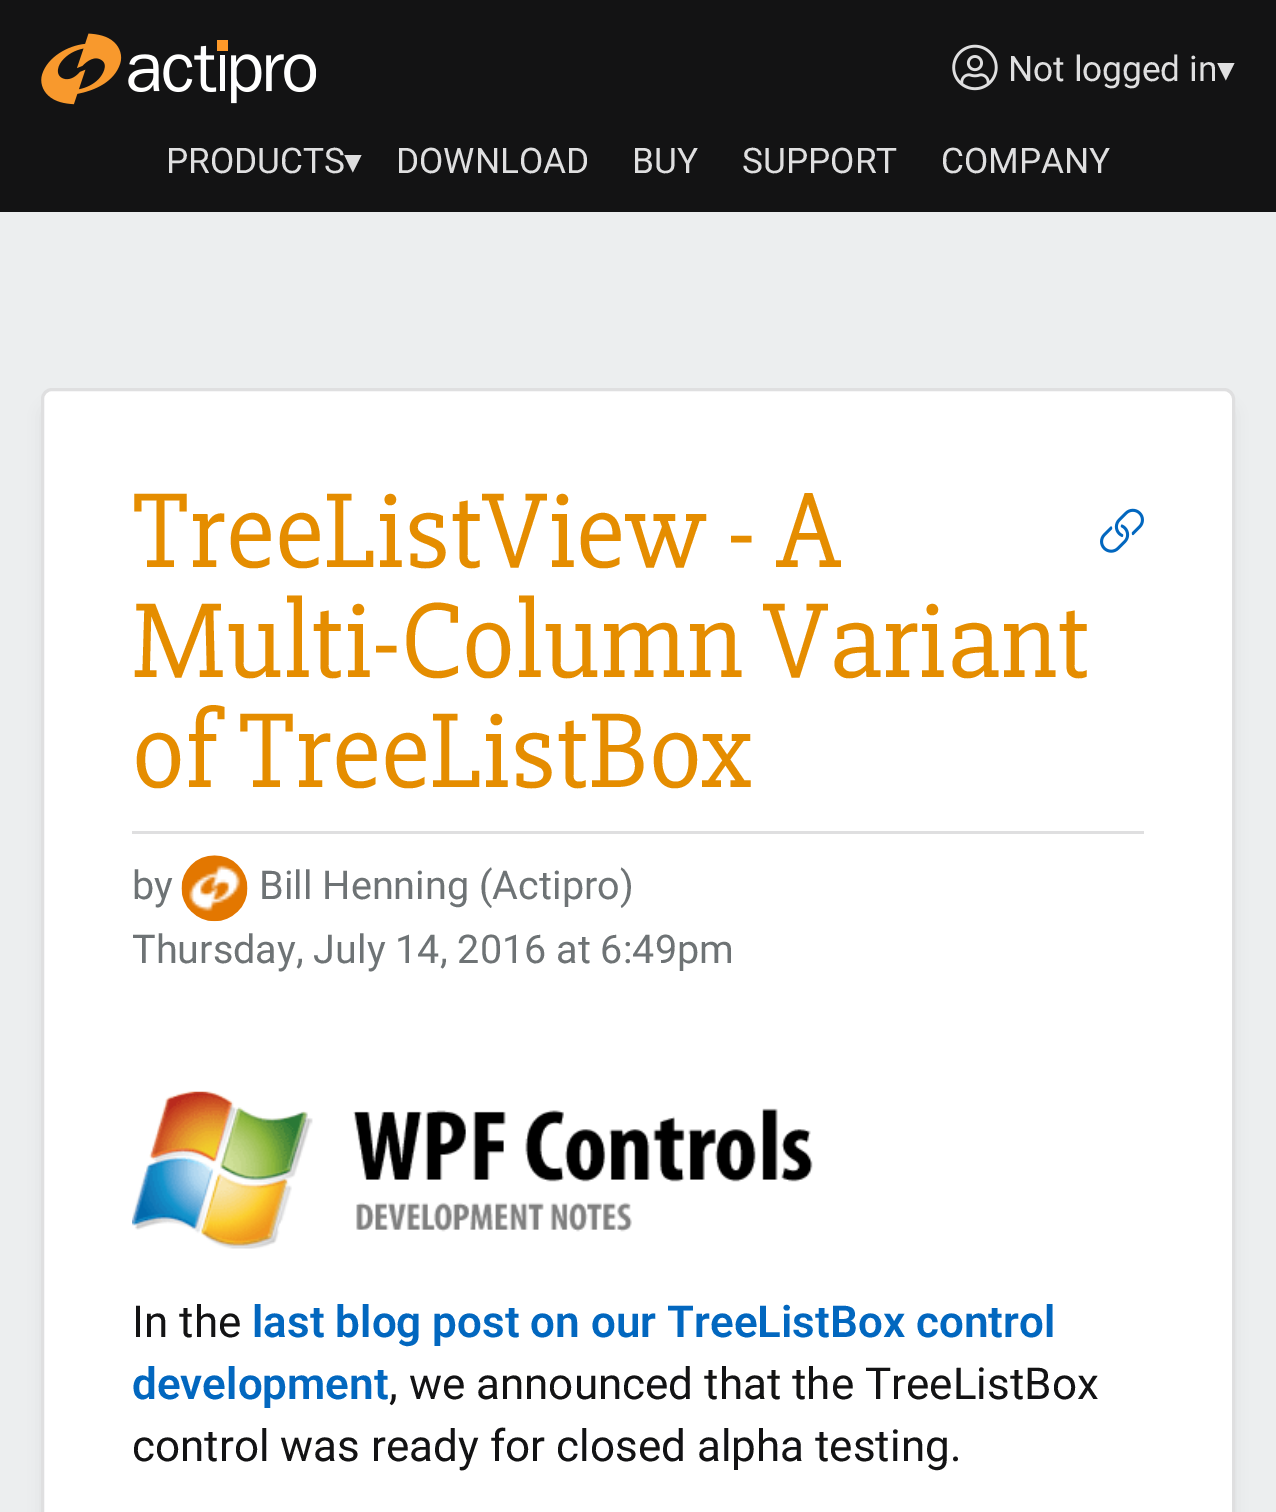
%!PS
<< /PageSize [1276 1512] /PageUsesTransparency true >> setpagedevice
/rgb { dup -16 bitshift 255 div exch dup -8 bitshift 255 and 255 div exch 255 and 255 div setrgbcolor } def
/font { [ exch dup neg 0 0 3 -1 roll 0 0 ] selectfont } def
/text { moveto show } def
/alpha { dup .setfillconstantalpha .setstrokeconstantalpha } def
/roundrect { 5 dict begin { /r /h /w /y /x } { exch def } forall
  x r add y moveto x w add y 2 copy h add r arct x w add y h add x 1 index r arct
  x y h add x y r arct x y 2 copy exch w add exch r arct closepath end } def
/shadow { 12 dict begin { /a /b /q /h /w /y /x } { exch def } forall gsave /was 0 def
  9 -2 -9 { dup b mul 4 div /e exch def 1 sub .425 mul 2.718 exch exp 1 add a .99 .min exch div /now exch def
    1 1 now sub 1 was sub div sub alpha /was now def
    w h .min e 2 mul add 0 gt { x e sub y e sub w e 2 mul add h e 2 mul add
      q e add b .6 mul add w h .min 2 div e add .min 0 .max roundrect fill } if } for grestore end } def
/picture { 5 dict begin { /h /w /y /x /name } { exch def } forall
  gsave x y translate w h scale
  w h 8 [w 0 0 h 0 0] name (r) file false 3 colorimage grestore end } def
0 .pushpdf14devicefilter
0 1512 translate 1 -1 scale
4 setmiterlimit
/s1 { /Roboto-Regular 35.25 font 16#DFDFE0 rgb } def
/s2 { /DejaVuSans-Regular 35.25 font 16#DFDFE0 rgb } def
/s3 { /Slabo27px-Regular 110 font 16#E58D00 rgb } def
/s4 { /Roboto-Regular 39.6 font 16#6E7375 rgb } def
/s5 { /Roboto-Regular 44 font 16#131314 rgb } def
/s6 { /Roboto-SemiBold 44 font 16#0267BF rgb } def
16#131314 rgb
0 0 1276 1512 rectfill
(pic1.raw) 41 33 275 72 picture
(pic2.raw) 952 44 46 47 picture
s1
(Not logged in) 1008 81 text
s2
(▾) 1217 81 text
s1
(PRODUCTS) 166 173 text
s2
(▾) 344 173 text
s1
(DOWNLOAD) 396 173 text
(BUY) 632 173 text
(SUPPORT) 742 173 text
(COMPANY) 941 173 text
16#ECEEEF rgb
0 212 1276 1300 rectfill
16#000000 rgb
41 404 1194 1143 11 8 0.05 shadow
16#FFFFFF rgb
42.5 389.5 1191 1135 9.5 roundrect gsave fill grestore
16#DFDFE0 rgb
3 setlinewidth
stroke
132 831 1012 3 rectfill
s3
(TreeListView - A) 132 567 text
(Multi-Column Variant) 132 677 text
(of TreeListBox) 132 787 text
(pic3.raw) 1100 508 44 45 picture
s4
(by) 132 899 text
(pic4.raw) 181 855 67 67 picture
(Bill Henning \(Actipro\)) 259 899 text
(Thursday, July 14, 2016 at 6:49pm) 132 963 text
(pic5.raw) 132 1091 681 158 picture
s5
(In the) 132 1337 text
s6
(last blog post on our TreeListBox control) 252 1337 text
(development) 132 1399 text
s5
(, we announced that the TreeListBox) 389 1399 text
(control was ready for closed alpha testing.) 132 1461 text
.poppdf14devicefilter showpage
